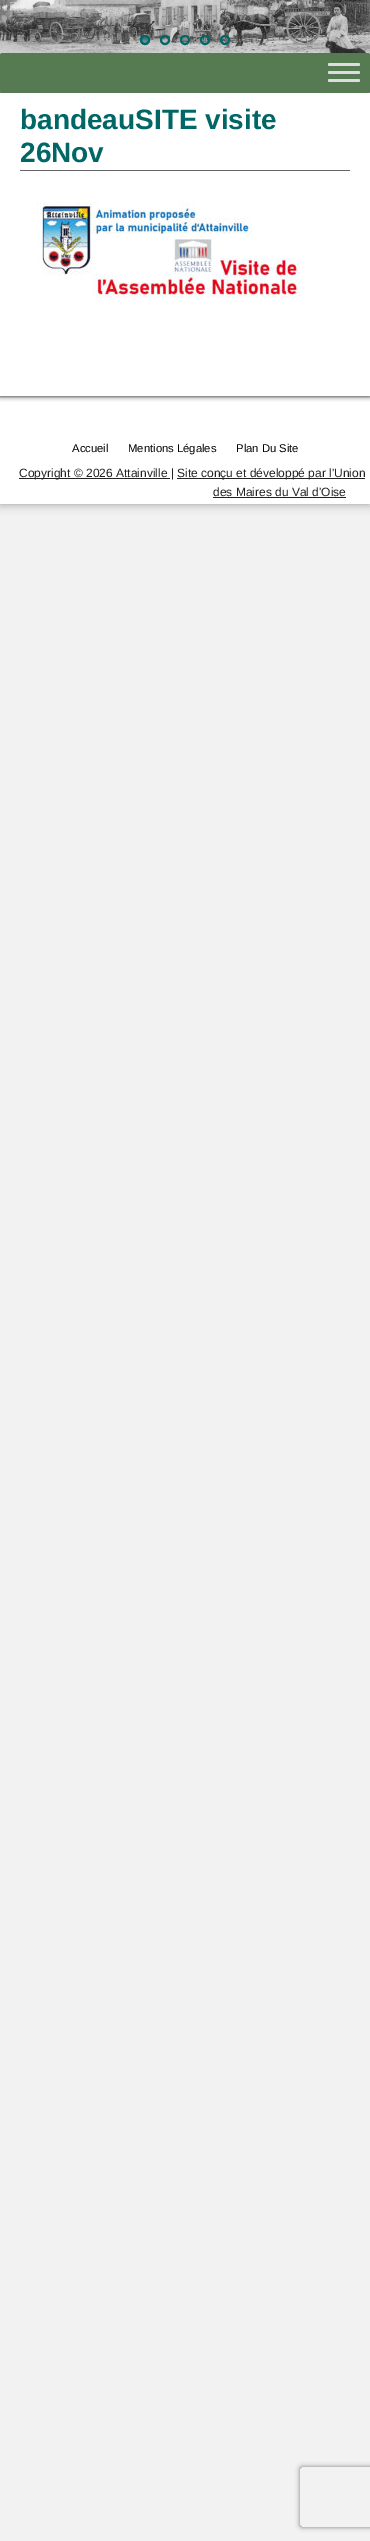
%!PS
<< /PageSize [370 2541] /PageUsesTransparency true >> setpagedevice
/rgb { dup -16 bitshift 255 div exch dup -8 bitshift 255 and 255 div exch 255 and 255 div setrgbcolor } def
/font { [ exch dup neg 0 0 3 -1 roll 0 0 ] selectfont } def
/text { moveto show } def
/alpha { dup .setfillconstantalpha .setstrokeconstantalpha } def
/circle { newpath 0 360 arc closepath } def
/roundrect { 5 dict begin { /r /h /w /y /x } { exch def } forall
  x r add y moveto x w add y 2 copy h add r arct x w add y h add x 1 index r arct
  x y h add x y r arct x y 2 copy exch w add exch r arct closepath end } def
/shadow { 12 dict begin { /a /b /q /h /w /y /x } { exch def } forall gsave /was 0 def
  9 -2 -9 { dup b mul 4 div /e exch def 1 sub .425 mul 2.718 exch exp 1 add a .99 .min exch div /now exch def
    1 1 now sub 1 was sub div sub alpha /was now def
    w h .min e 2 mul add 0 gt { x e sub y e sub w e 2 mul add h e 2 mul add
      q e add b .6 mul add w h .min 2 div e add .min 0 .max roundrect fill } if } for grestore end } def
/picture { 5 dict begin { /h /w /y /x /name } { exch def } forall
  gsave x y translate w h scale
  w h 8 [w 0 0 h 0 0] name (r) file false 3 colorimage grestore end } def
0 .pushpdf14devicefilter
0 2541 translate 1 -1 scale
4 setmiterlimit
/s1 { /LiberationSans-Bold 28 font 16#006666 rgb } def
/s2 { /LiberationSans-Regular 11.25 font 16#000000 rgb } def
/s3 { /LiberationSans-Regular 12 font 16#222222 rgb } def
16#F2F2F2 rgb
0 0 370 2541 rectfill
16#999999 rgb
0 0 370 504 0 5 1 shadow
16#FFFFFF rgb
0 53 370 451 rectfill
(pic1.raw) 0 0 370 53 picture
16#006666 rgb
2 setlinewidth
145 40 4 circle stroke
0.5 alpha
145 40 5 circle fill
1 alpha
165 40 4 circle stroke
185 40 4 circle stroke
205 40 4 circle stroke
225 40 4 circle stroke
gsave
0 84 moveto 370 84 lineto 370 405 lineto 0 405 lineto closepath 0 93 moveto 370 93 lineto 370 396 lineto 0 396 lineto closepath eoclip newpath
16#000000 rgb
0 93 370 303 0 2.5 1 shadow
grestore
16#567A51 rgb
0 53 370 40 2 roundrect fill
16#DDDDDD rgb
328 63 32 3 1.5 roundrect fill
328 71 32 3 1.5 roundrect fill
328 79 32 3 1.5 roundrect fill
16#666666 rgb
20 170 330 1 rectfill
s1
(bandeauSITE visite) 20 129 text
(26Nov) 20 162 text
(pic2.raw) 36 202 264 96 picture
s2
(Accueil) 72 452 text
(Mentions Légales) 128 452 text
(Plan Du Site) 236 452 text
16#222222 rgb
19 478 151 1 rectfill
s3
(Copyright © 2026 Attainville |) 19 477 text
177 478 188 1 rectfill
(Site conçu et développé par l'Union) 177 477 text
(des Maires du Val d'Oise) 213 496 text
213 497 133 1 rectfill
gsave
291 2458 moveto 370 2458 lineto 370 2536 lineto 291 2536 lineto closepath 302 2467 moveto 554 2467 lineto 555 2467 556 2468 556 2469 curveto 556 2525 lineto 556 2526 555 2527 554 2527 curveto 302 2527 lineto 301 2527 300 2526 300 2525 curveto 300 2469 lineto 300 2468 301 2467 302 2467 curveto closepath eoclip newpath
16#808080 rgb
300 2467 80 60 2 2.5 1 shadow
grestore
.poppdf14devicefilter showpage
